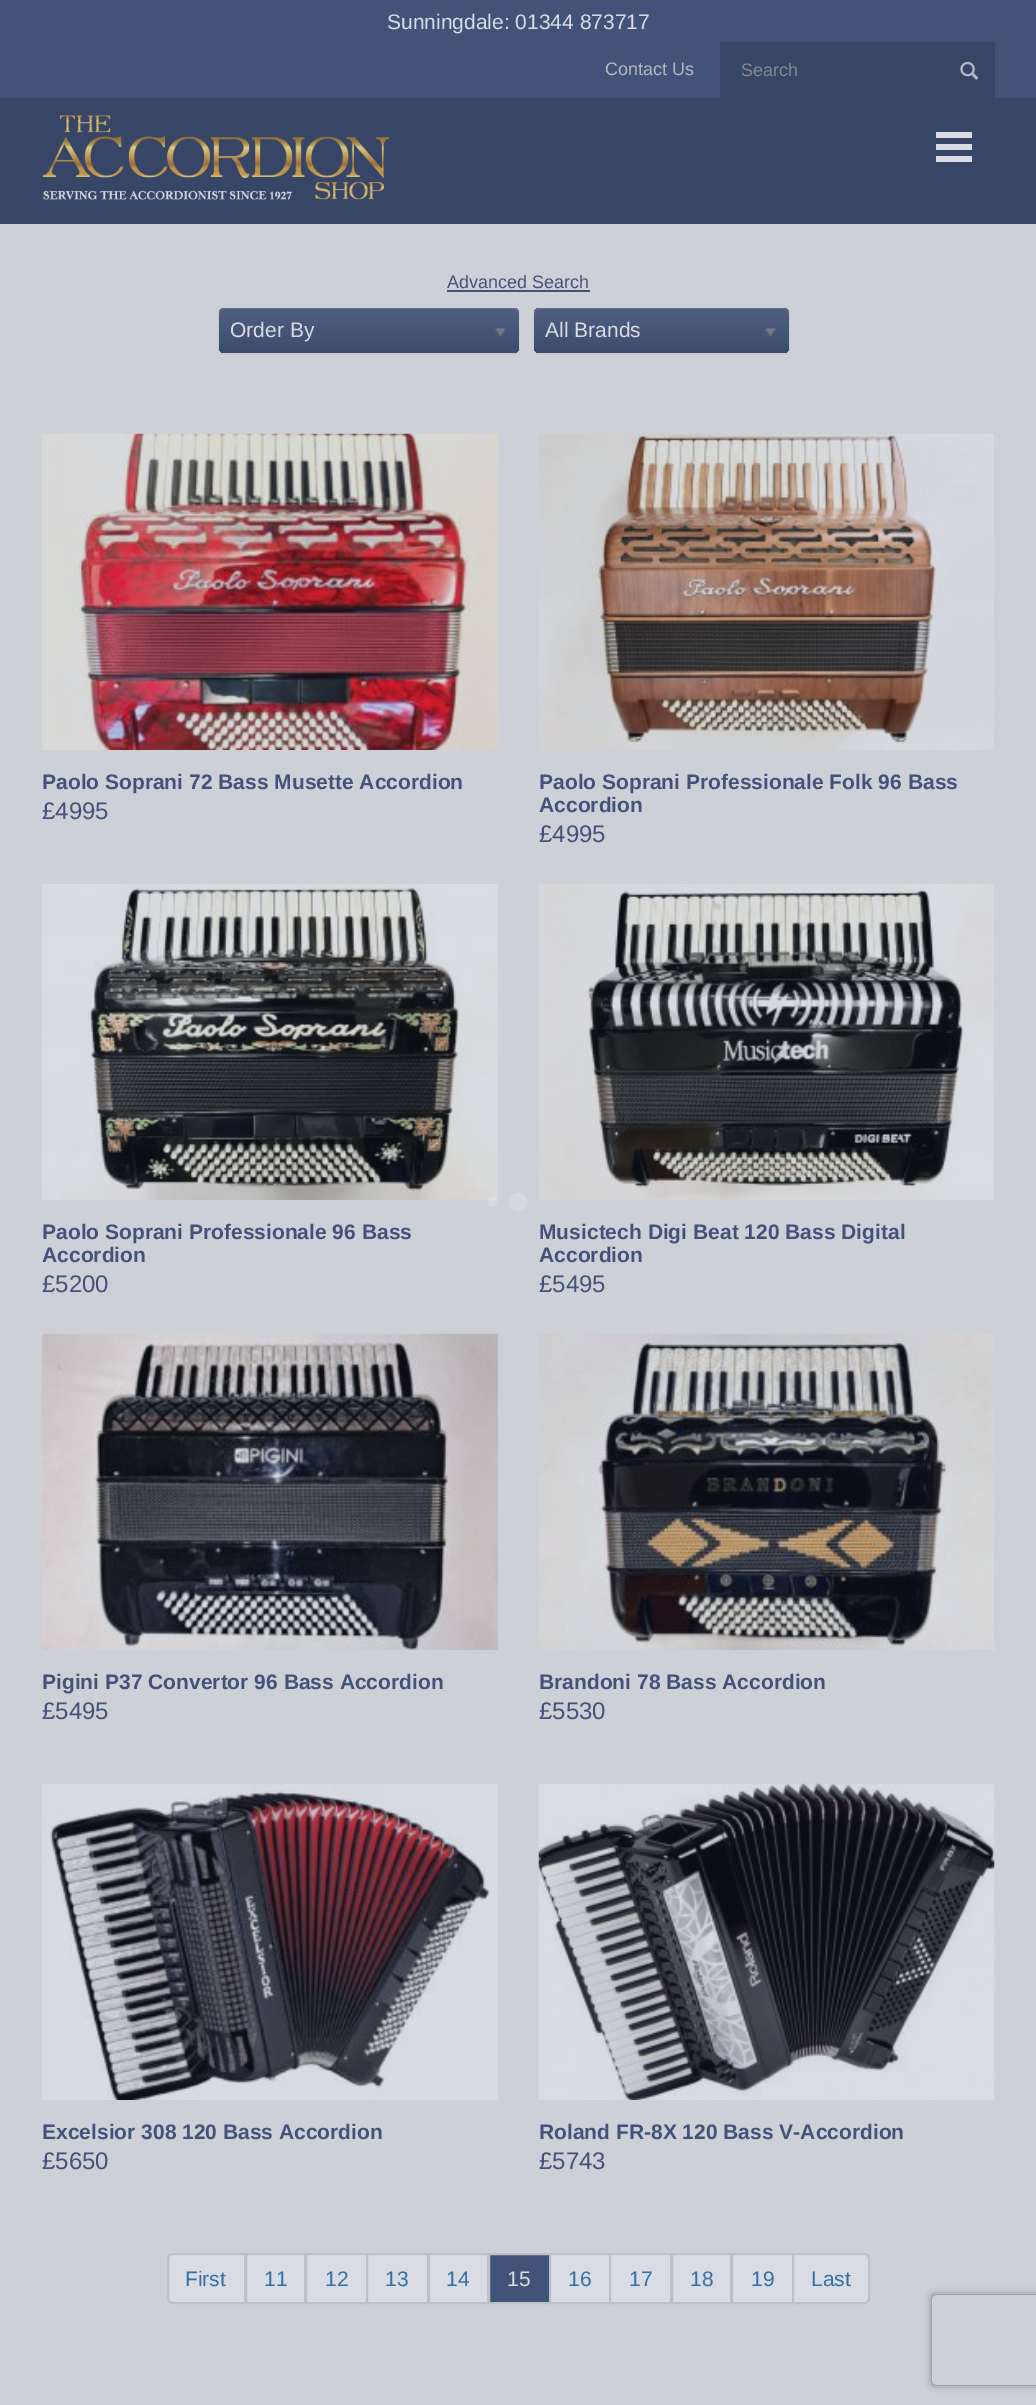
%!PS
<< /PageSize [1036 2405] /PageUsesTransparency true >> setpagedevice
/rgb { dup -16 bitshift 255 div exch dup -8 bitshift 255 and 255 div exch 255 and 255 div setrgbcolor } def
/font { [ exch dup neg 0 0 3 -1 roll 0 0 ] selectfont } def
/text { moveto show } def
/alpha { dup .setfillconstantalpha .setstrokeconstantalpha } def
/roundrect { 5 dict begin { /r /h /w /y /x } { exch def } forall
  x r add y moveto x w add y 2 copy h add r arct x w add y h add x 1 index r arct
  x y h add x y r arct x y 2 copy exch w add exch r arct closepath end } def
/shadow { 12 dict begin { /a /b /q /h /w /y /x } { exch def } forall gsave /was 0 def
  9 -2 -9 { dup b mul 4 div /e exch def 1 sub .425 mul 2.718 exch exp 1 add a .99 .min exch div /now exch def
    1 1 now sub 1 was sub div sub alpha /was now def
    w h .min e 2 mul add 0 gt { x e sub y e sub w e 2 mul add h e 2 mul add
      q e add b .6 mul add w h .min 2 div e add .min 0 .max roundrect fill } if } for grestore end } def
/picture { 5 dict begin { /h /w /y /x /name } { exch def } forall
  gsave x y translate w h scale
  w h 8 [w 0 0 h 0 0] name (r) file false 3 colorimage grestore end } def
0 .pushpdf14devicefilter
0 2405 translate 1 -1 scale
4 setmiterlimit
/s1 { /LiberationSans-Regular 21 font 16#D9DCE2 rgb } def
/s2 { /LiberationSans-Regular 18 font 16#B5B7BE rgb } def
/s3 { /LiberationSans-Regular 18 font 16#868990 rgb } def
/s4 { /LiberationSans-Regular 18 font 16#425279 rgb } def
/s5 { /LiberationSans-Bold 21 font 16#425279 rgb } def
/s6 { /LiberationSans-Regular 24 font 16#425279 rgb } def
/s7 { /LiberationSans-Regular 21 font 16#3470A8 rgb } def
16#CDD0D6 rgb
0 0 1036 2405 rectfill
16#374567 rgb
0 98 1036 126 rectfill
16#425279 rgb
0 0 1036 98 rectfill
s1
(Sunningdale: 01344 873717) 387 29 text
s2
(Contact Us) 605 75 text
16#374567 rgb
720 42 275 56 rectfill
s3
(Search) 741 76 text
(pic1.raw) 960 61 19 19 picture
(pic2.raw) 42 115 348 85 picture
16#D9DCE2 rgb
936 132 36 6 rectfill
936 144 36 6 rectfill
936 156 36 6 rectfill
s4
(Advanced Search) 447 288 text
447 290 143 2 rectfill
16#0A0D14 rgb
219 309 300 45 6 1 0.07 shadow
gsave 219 308 300 45 6 roundrect clip newpath
<< /ShadingType 2 /ColorSpace /DeviceRGB /Coords [369 308 369 353] /Extend [true true] /Function << /FunctionType 2 /Domain [0 1] /C0 [0.318 0.373 0.514] /C1 [0.239 0.294 0.435] /N 1 >> >> shfill grestore
0.15 alpha
16#D9DCE2 rgb
225 309 moveto 513 309 lineto 516 309 519 312 519 315 curveto 519 311 517 308 513 308 curveto 225 308 lineto 221 308 219 311 219 315 curveto 219 312 222 309 225 309 curveto closepath fill
1 alpha
s1
(Order By) 230 337 text
(pic3.raw) 495 328 11 9 picture
16#0A0D14 rgb
534 309 255 45 6 1 0.07 shadow
gsave 534 308 255 45 6 roundrect clip newpath
<< /ShadingType 2 /ColorSpace /DeviceRGB /Coords [662 308 662 353] /Extend [true true] /Function << /FunctionType 2 /Domain [0 1] /C0 [0.318 0.373 0.514] /C1 [0.239 0.294 0.435] /N 1 >> >> shfill grestore
0.15 alpha
16#D9DCE2 rgb
540 309 moveto 783 309 lineto 786 309 789 312 789 315 curveto 789 314 lineto 789 311 786 308 783 308 curveto 540 308 lineto 537 308 534 311 534 314 curveto 534 315 lineto 534 312 537 309 540 309 curveto closepath fill
1 alpha
(All Brands) 545 337 text
(pic4.raw) 765 328 11 9 picture
(pic5.raw) 42 433 456 317 picture
s5
(Paolo Soprani 72 Bass Musette Accordion) 42 789 text
s6
(£4995) 42 819 text
(pic6.raw) 539 433 455 317 picture
s5
(Paolo Soprani Professionale Folk 96 Bass) 539 789 text
(Accordion) 539 812 text
s6
(£4995) 539 842 text
(pic7.raw) 42 884 456 316 picture
s5
(Paolo Soprani Professionale 96 Bass) 42 1239 text
(Accordion) 42 1262 text
s6
(£5200) 42 1292 text
(pic8.raw) 539 884 455 316 picture
s5
(Musictech Digi Beat 120 Bass Digital) 539 1239 text
(Accordion) 539 1262 text
s6
(£5495) 539 1292 text
(pic9.raw) 42 1333 456 317 picture
s5
(Pigini P37 Convertor 96 Bass Accordion) 42 1689 text
s6
(£5495) 42 1719 text
(pic10.raw) 539 1333 455 317 picture
s5
(Brandoni 78 Bass Accordion) 539 1689 text
s6
(£5530) 539 1719 text
(pic11.raw) 42 1784 456 316 picture
s5
(Excelsior 308 120 Bass Accordion) 42 2139 text
s6
(£5650) 42 2169 text
(pic12.raw) 538 1783 457 317 picture
s5
(Roland FR-8X 120 Bass V-Accordion) 539 2139 text
s6
(£5743) 539 2169 text
16#D9DCE2 rgb
173 2254 moveto 245 2254 lineto 245 2303 lineto 173 2303 lineto 170 2303 168 2301 168 2298 curveto 168 2259 lineto 168 2256 170 2254 173 2254 curveto closepath gsave fill grestore
16#BDC0C7 rgb
2 setlinewidth
stroke
s7
(First) 185 2286 text
16#D9DCE2 rgb
246 2254 moveto 305 2254 lineto 305 2303 lineto 246 2303 lineto closepath gsave fill grestore
16#BDC0C7 rgb
stroke
s7
(11) 264 2286 text
16#D9DCE2 rgb
306 2254 moveto 367 2254 lineto 367 2303 lineto 306 2303 lineto closepath gsave fill grestore
16#BDC0C7 rgb
stroke
s7
(12) 325 2286 text
16#D9DCE2 rgb
367 2254 moveto 428 2254 lineto 428 2303 lineto 367 2303 lineto closepath gsave fill grestore
16#BDC0C7 rgb
stroke
s7
(13) 385 2286 text
16#D9DCE2 rgb
429 2254 moveto 488 2254 lineto 488 2303 lineto 429 2303 lineto closepath gsave fill grestore
16#BDC0C7 rgb
stroke
s7
(14) 446 2286 text
16#425279 rgb
489 2254 moveto 550 2254 lineto 550 2303 lineto 489 2303 lineto closepath gsave fill grestore
16#BDC0C7 rgb
stroke
s1
(15) 507 2286 text
550 2254 moveto 610 2254 lineto 610 2303 lineto 550 2303 lineto closepath gsave fill grestore
16#BDC0C7 rgb
stroke
s7
(16) 568 2286 text
16#D9DCE2 rgb
610 2254 moveto 671 2254 lineto 671 2303 lineto 610 2303 lineto closepath gsave fill grestore
16#BDC0C7 rgb
stroke
s7
(17) 629 2286 text
16#D9DCE2 rgb
672 2254 moveto 731 2254 lineto 731 2303 lineto 672 2303 lineto closepath gsave fill grestore
16#BDC0C7 rgb
stroke
s7
(18) 690 2286 text
16#D9DCE2 rgb
732 2254 moveto 793 2254 lineto 793 2303 lineto 732 2303 lineto closepath gsave fill grestore
16#BDC0C7 rgb
stroke
s7
(19) 751 2286 text
16#D9DCE2 rgb
793 2254 moveto 864 2254 lineto 867 2254 869 2256 869 2259 curveto 869 2298 lineto 869 2301 867 2303 864 2303 curveto 793 2303 lineto closepath gsave fill grestore
16#BDC0C7 rgb
stroke
s7
(Last) 811 2286 text
(pic13.raw) 487 1192 41 20 picture
gsave
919 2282 moveto 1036 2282 lineto 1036 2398 lineto 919 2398 lineto closepath 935 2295 moveto 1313 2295 lineto 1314.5 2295 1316 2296.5 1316 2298 curveto 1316 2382 lineto 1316 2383.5 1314.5 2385 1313 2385 curveto 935 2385 lineto 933.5 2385 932 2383.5 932 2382 curveto 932 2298 lineto 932 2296.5 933.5 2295 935 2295 curveto closepath eoclip newpath
16#72757B rgb
932 2295 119 90 3 4 1 shadow
grestore
.poppdf14devicefilter showpage
